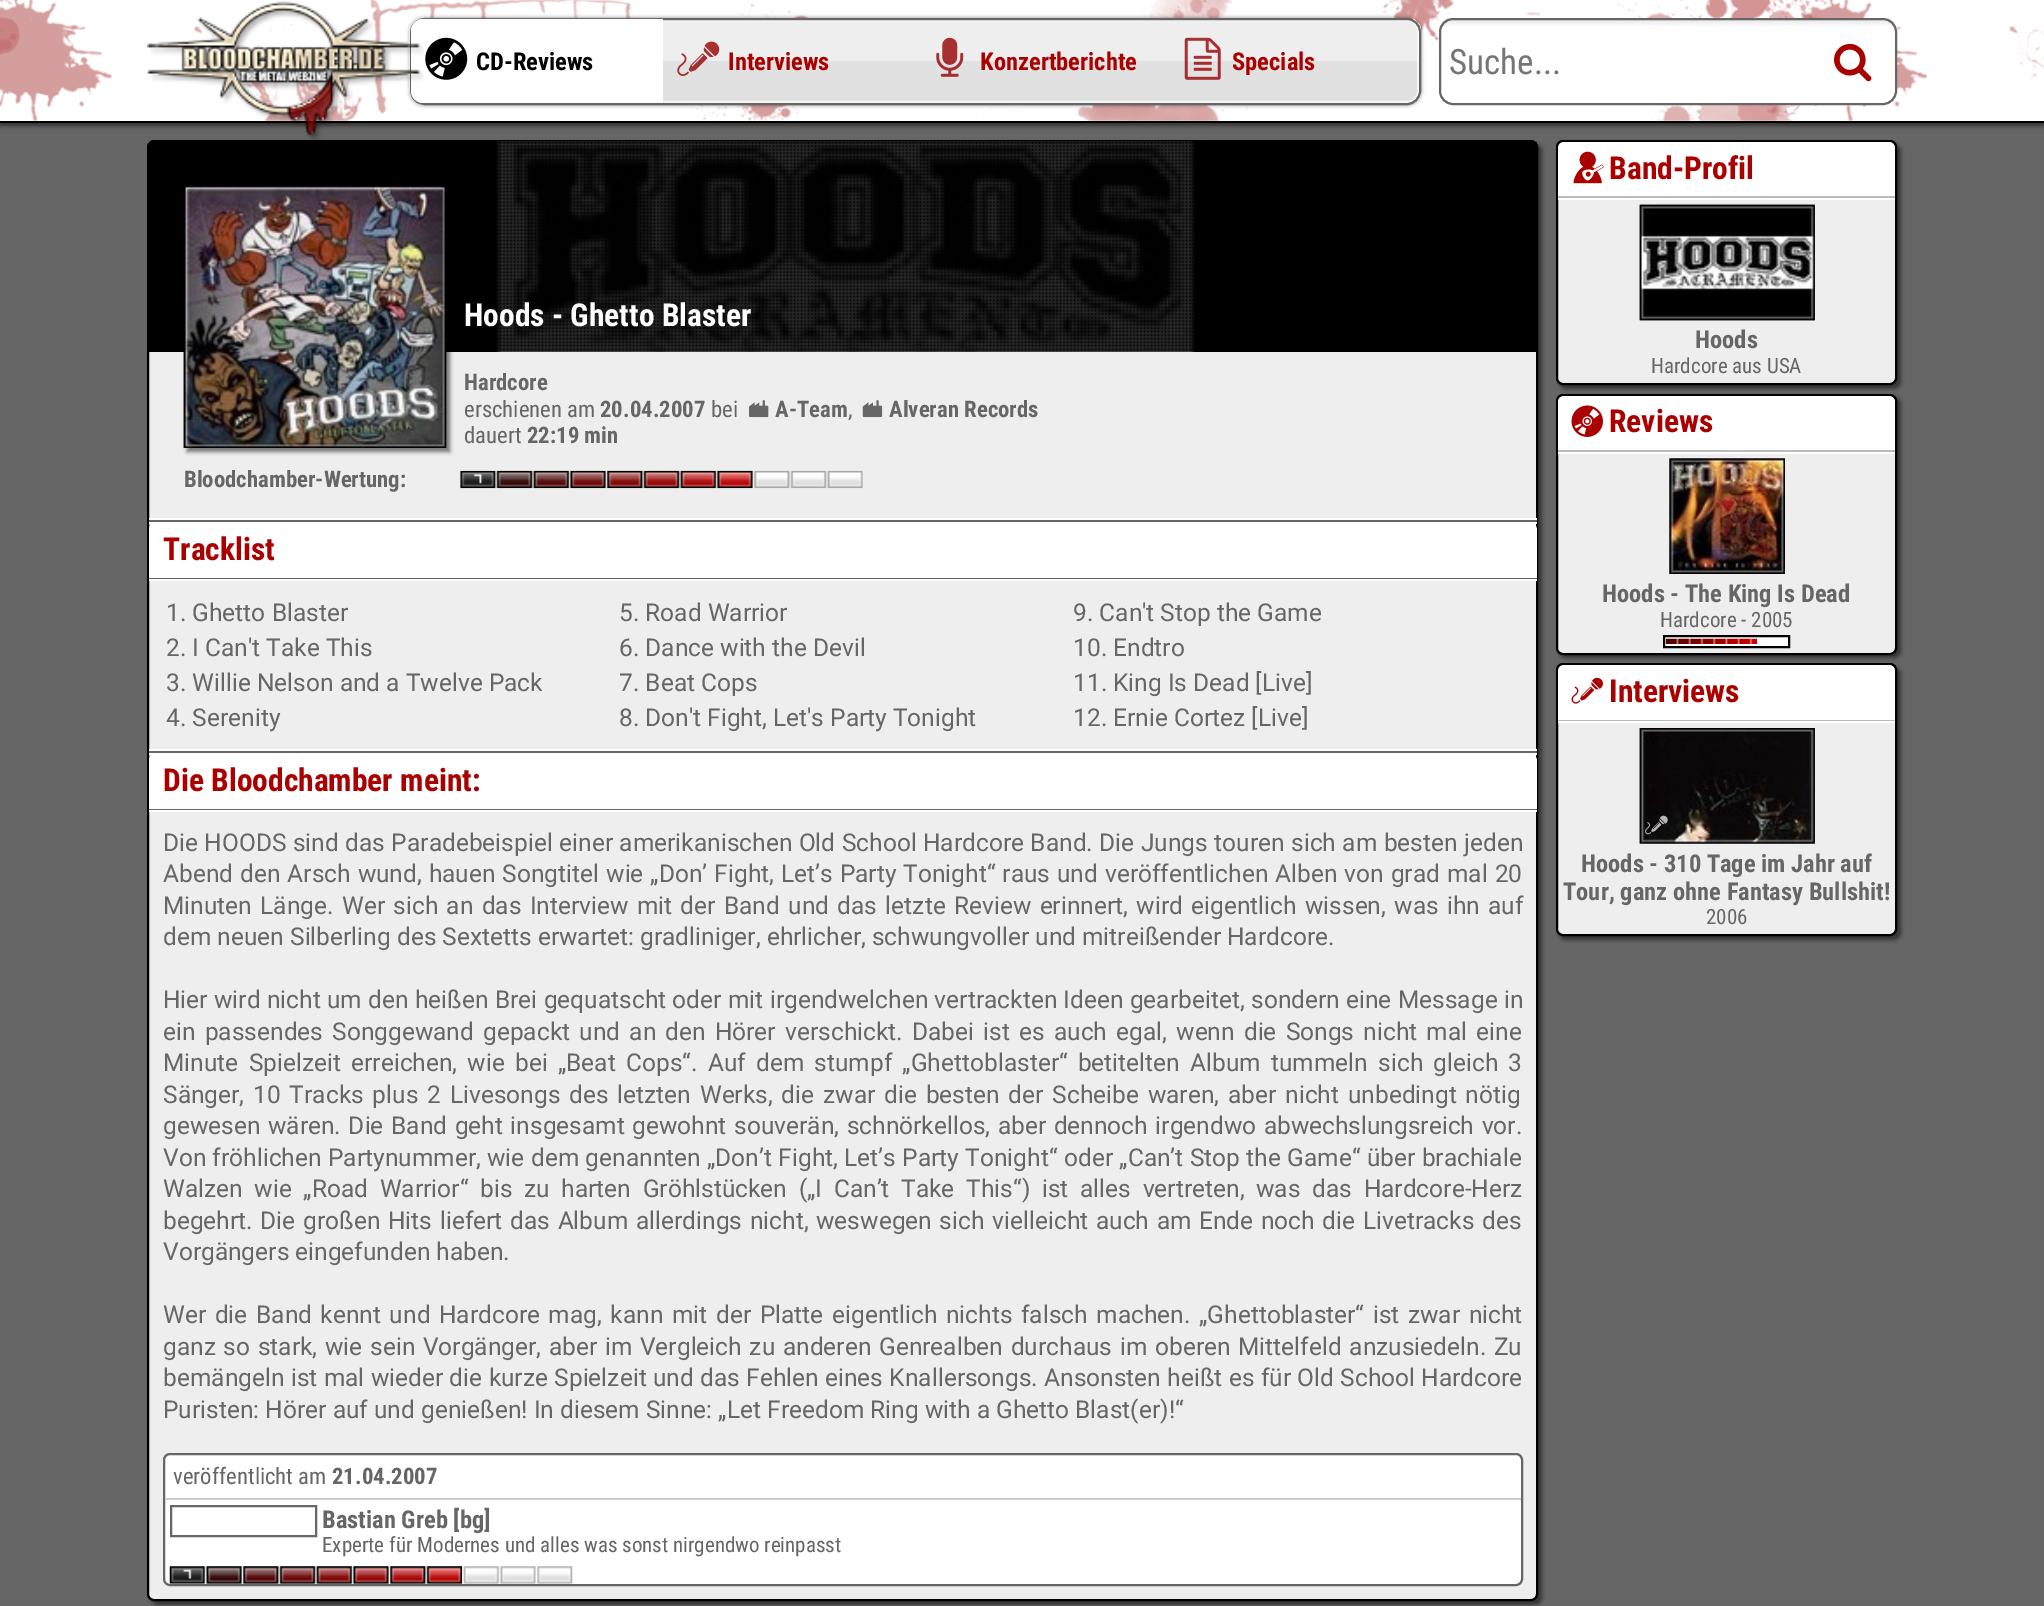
%!PS
<< /PageSize [2044 1606] /PageUsesTransparency true >> setpagedevice
/rgb { dup -16 bitshift 255 div exch dup -8 bitshift 255 and 255 div exch 255 and 255 div setrgbcolor } def
/font { [ exch dup neg 0 0 3 -1 roll 0 0 ] selectfont } def
/text { moveto show } def
/alpha { dup .setfillconstantalpha .setstrokeconstantalpha } def
/roundrect { 5 dict begin { /r /h /w /y /x } { exch def } forall
  x r add y moveto x w add y 2 copy h add r arct x w add y h add x 1 index r arct
  x y h add x y r arct x y 2 copy exch w add exch r arct closepath end } def
/shadow { 12 dict begin { /a /b /q /h /w /y /x } { exch def } forall gsave /was 0 def
  9 -2 -9 { dup b mul 4 div /e exch def 1 sub .425 mul 2.718 exch exp 1 add a .99 .min exch div /now exch def
    1 1 now sub 1 was sub div sub alpha /was now def
    w h .min e 2 mul add 0 gt { x e sub y e sub w e 2 mul add h e 2 mul add
      q e add b .6 mul add w h .min 2 div e add .min 0 .max roundrect fill } if } for grestore end } def
/picture { 5 dict begin { /h /w /y /x /name } { exch def } forall
  gsave x y translate w h scale
  w h 8 [w 0 0 h 0 0] name (r) file false 3 colorimage grestore end } def
0 .pushpdf14devicefilter
0 1606 translate 1 -1 scale
4 setmiterlimit
/s1 { /RobotoCondensed-Bold 24.5 font 16#000000 rgb } def
/s2 { /RobotoCondensed-Bold 24.5 font 16#AA0000 rgb } def
/s3 { /RobotoCondensed-Regular 35 font 16#757575 rgb } def
/s4 { /RobotoCondensed-Bold 31.5 font 16#FFFFFF rgb } def
/s5 { /RobotoCondensed-Bold 22.75 font 16#666666 rgb } def
/s6 { /RobotoCondensed-Regular 22.75 font 16#666666 rgb } def
/s7 { /RobotoCondensed-Bold 31.5 font 16#AA0000 rgb } def
/s8 { /Roboto-Regular 24.5 font 16#666666 rgb } def
/s9 { /RobotoCondensed-Bold 24.5 font 16#666666 rgb } def
/s10 { /RobotoCondensed-Regular 21 font 16#666666 rgb } def
16#666666 rgb
0 0 2044 1606 rectfill
16#000000 rgb
0 4 2044 122 0 2 0.5 shadow
16#FFFFFF rgb
0 0 2044 121 rectfill
(pic1.raw) 0 0 2044 121 picture
16#000000 rgb
0 121 2044 2 rectfill
410 18 1011 87 14 2 0.5 shadow
gsave
410 18 1011 87 14 roundrect clip newpath
16#EEEEEE rgb
410 19 1011 42 rectfill
16#E1E1E1 rgb
410 61 1011 42 rectfill
grestore
0.7 alpha
16#FFFFFF rgb
2 setlinewidth
412 20 1006 82 11 roundrect stroke
1 alpha
16#666666 rgb
411 19 1009 85 13 roundrect stroke
16#FFFFFF rgb
423 19 moveto 663 19 lineto 663 103 lineto 423 103 lineto 416.5 103 411 97.5 411 91 curveto 411 31 lineto 411 24.5 416.5 19 423 19 curveto closepath fill
16#000000 rgb
151 144 1391 1461 7 2 0.5 shadow
(pic2.raw) 147 1 277 139 picture
(pic3.raw) 425 37 43 43 picture
s1
(CD-Reviews) 476 70 text
(pic4.raw) 677 41 43 35 picture
s2
(Interviews) 728 70 text
(pic5.raw) 936 37 28 40 picture
(Konzertberichte) 980 70 text
(pic6.raw) 1184 37 37 43 picture
(Specials) 1232 70 text
gsave
1439 18 458 87 14 roundrect clip newpath
gsave 1439 19 moveto 1897 19 lineto 1897 103 lineto 1439 103 lineto closepath clip newpath
<< /ShadingType 2 /ColorSpace /DeviceRGB /Coords [1668 19 1668 103] /Extend [true true] /Function << /FunctionType 3 /Domain [0 1] /Functions [<< /FunctionType 2 /Domain [0 1] /C0 [0.902 0.902 0.902] /C1 [1 1 1] /N 1 >> << /FunctionType 2 /Domain [0 1] /C0 [1 1 1] /C1 [1 1 1] /N 1 >>] /Bounds [0.1] /Encode [0 1 0 1] >> >> shfill grestore
grestore
16#666666 rgb
1440 19 456 85 13 roundrect stroke
s3
(Suche...) 1449 74 text
(pic7.raw) 1834 43 38 39 picture
16#EEEEEE rgb
148 141 1389 1459 6 roundrect gsave fill grestore
16#000000 rgb
stroke
149 142 1388 210 rectfill
(pic8.raw) 148 141 1389 211 picture
(pic9.raw) 148 141 1388 211 picture
s4
(Hoods - Ghetto Blaster) 464 326 text
16#000000 rgb
187 189 263 263 0 2 0.5 shadow
(pic10.raw) 183 185 264 263 picture
(pic11.raw) 183 352 264 96 picture
s5
(Hardcore) 464 390 text
s6
(erschienen am) 464 417 text
s5
(20.04.2007) 600 417 text
s6
(bei) 711 417 text
(pic12.raw) 749 400 20 18 picture
s5
(A-Team) 775 417 text
s6
(,) 848 417 text
(pic13.raw) 862 400 21 18 picture
s5
(Alveran Records) 889 417 text
s6
(dauert) 464 443 text
s5
(22:19 min) 527 443 text
(Bloodchamber-Wertung:) 184 487 text
(pic14.raw) 460 470 403 19 picture
(pic15.raw) 473 473 9 11 picture
(pic16.raw) 496 470 257 19 picture
149 520 1388 2 rectfill
16#FFFFFF rgb
149 518 1388 2 rectfill
149 522 1388 2 rectfill
156 523 moveto 1530 523 lineto 1534 523 1537 526 1537 530 curveto 1537 576 lineto 149 576 lineto 149 530 lineto 149 526 152 523 156 523 curveto closepath fill
s7
(Tracklist) 163 560 text
16#666666 rgb
149 578 1388 1 rectfill
16#FFFFFF rgb
149 576 1388 2 rectfill
149 579 1388 2 rectfill
s8
(1. Ghetto Blaster) 166 621 text
(2. I Can't Take This) 166 656 text
(3. Willie Nelson and a Twelve Pack) 166 691 text
(4. Serenity) 166 726 text
(5. Road Warrior) 619 621 text
(6. Dance with the Devil) 619 656 text
(7. Beat Cops) 619 691 text
(8. Don't Fight, Let's Party Tonight) 619 726 text
(9. Can't Stop the Game) 1073 621 text
(10. Endtro) 1073 656 text
(11. King Is Dead [Live]) 1073 691 text
(12. Ernie Cortez [Live]) 1073 726 text
149 751 1388 2 rectfill
16#FFFFFF rgb
149 749 1388 2 rectfill
149 753 1388 2 rectfill
156 754 moveto 1530 754 lineto 1534 754 1537 757 1537 761 curveto 1537 807 lineto 149 807 lineto 149 761 lineto 149 757 152 754 156 754 curveto closepath fill
s7
(Die Bloodchamber meint:) 163 791 text
16#666666 rgb
149 809 1388 1 rectfill
16#FFFFFF rgb
149 807 1388 2 rectfill
149 810 1388 2 rectfill
/Roboto-Regular 24.5 font
16#666666 rgb
163 851 moveto 0.4 0 32 (Die HOODS sind das Paradebeispiel einer amerikanischen Old School Hardcore Band. Die Jungs touren sich am besten jeden) widthshow
163 882 moveto 0.9 0 32 (Abend den Arsch wund, hauen Songtitel wie „Don’ Fight, Let’s Party Tonight“ raus und veröffentlichen Alben von grad mal 20) widthshow
163 914 moveto 2.25 0 32 (Minuten Länge. Wer sich an das Interview mit der Band und das letzte Review erinnert, wird eigentlich wissen, was ihn auf) widthshow
(dem neuen Silberling des Sextetts erwartet: gradliniger, ehrlicher, schwungvoller und mitreißender Hardcore.) 163 945 text
163 1008 moveto 0.25 0 32 (Hier wird nicht um den heißen Brei gequatscht oder mit irgendwelchen vertrackten Ideen gearbeitet, sondern eine Message in) widthshow
163 1040 moveto 3.1 0 32 (ein passendes Songgewand gepackt und an den Hörer verschickt. Dabei ist es auch egal, wenn die Songs nicht mal eine) widthshow
163 1071 moveto 4.1 0 32 (Minute Spielzeit erreichen, wie bei „Beat Cops“. Auf dem stumpf „Ghettoblaster“ betitelten Album tummeln sich gleich 3) widthshow
163 1103 moveto 2.75 0 32 (Sänger, 10 Tracks plus 2 Livesongs des letzten Werks, die zwar die besten der Scheibe waren, aber nicht unbedingt nötig) widthshow
163 1134 moveto 1.5 0 32 (gewesen wären. Die Band geht insgesamt gewohnt souverän, schnörkellos, aber dennoch irgendwo abwechslungsreich vor.) widthshow
163 1166 moveto 0.3 0 32 (Von fröhlichen Partynummer, wie dem genannten „Don’t Fight, Let’s Party Tonight“ oder „Can’t Stop the Game“ über brachiale) widthshow
163 1197 moveto 5.6 0 32 (Walzen wie „Road Warrior“ bis zu harten Gröhlstücken \(„I Can’t Take This“\) ist alles vertreten, was das Hardcore-Herz) widthshow
163 1229 moveto 1.6 0 32 (begehrt. Die großen Hits liefert das Album allerdings nicht, weswegen sich vielleicht auch am Ende noch die Livetracks des) widthshow
(Vorgängers eingefunden haben.) 163 1260 text
163 1323 moveto 2.5 0 32 (Wer die Band kennt und Hardcore mag, kann mit der Platte eigentlich nichts falsch machen. „Ghettoblaster“ ist zwar nicht) widthshow
163 1355 moveto 1.6 0 32 (ganz so stark, wie sein Vorgänger, aber im Vergleich zu anderen Genrealben durchaus im oberen Mittelfeld anzusiedeln. Zu) widthshow
163 1386 moveto 0.25 0 32 (bemängeln ist mal wieder die kurze Spielzeit und das Fehlen eines Knallersongs. Ansonsten heißt es für Old School Hardcore) widthshow
(Puristen: Hörer auf und genießen! In diesem Sinne: „Let Freedom Ring with a Ghetto Blast\(er\)!“) 163 1418 text
16#FFFFFF rgb
164 1454 1358 131 6 roundrect gsave fill grestore
16#666666 rgb
stroke
16#CCCCCC rgb
165 1498 1356 2 rectfill
s6
(veröffentlicht am) 173 1484 text
s5
(21.04.2007) 332 1484 text
171 1506 145 30 rectstroke
s9
(Bastian Greb [bg]) 322 1528 text
s10
(Experte für Modernes und alles was sonst nirgendwo reinpasst) 322 1552 text
(pic17.raw) 169 1566 404 18 picture
(pic18.raw) 183 1569 9 10 picture
(pic19.raw) 206 1566 256 18 picture
16#000000 rgb
1559 144 342 245 7 2 0.5 shadow
16#EEEEEE rgb
1557 141 339 243 6 roundrect gsave fill grestore
16#000000 rgb
stroke
16#FFFFFF rgb
1565 142 moveto 1888 142 lineto 1892 142 1895 145 1895 149 curveto 1895 194 lineto 1558 194 lineto 1558 149 lineto 1558 145 1561 142 1565 142 curveto closepath fill
(pic20.raw) 1573 151 31 33 picture
s7
(Band-Profil) 1609 179 text
16#BBBBBB rgb
1558 196 337 2 rectfill
16#FFFFFF rgb
1558 194 337 2 rectfill
1558 198 337 2 rectfill
(pic21.raw) 1639 204 176 117 picture
(pic22.raw) 1639 204 176 117 picture
s9
(Hoods) 1695 348 text
s10
(Hardcore aus USA) 1651 373 text
16#000000 rgb
1559 397 342 261 7 2 0.5 shadow
16#EEEEEE rgb
1557 395 339 259 6 roundrect gsave fill grestore
16#000000 rgb
stroke
16#FFFFFF rgb
1565 396 moveto 1888 396 lineto 1892 396 1895 399 1895 403 curveto 1895 448 lineto 1558 448 lineto 1558 403 lineto 1558 399 1561 396 1565 396 curveto closepath fill
(pic23.raw) 1571 405 32 32 picture
s7
(Reviews) 1609 432 text
16#BBBBBB rgb
1558 450 337 2 rectfill
16#FFFFFF rgb
1558 448 337 2 rectfill
1558 452 337 2 rectfill
(pic24.raw) 1669 458 116 116 picture
(pic25.raw) 1669 458 116 116 picture
s9
(Hoods - The King Is Dead) 1602 602 text
s10
(Hardcore - 2005) 1660 627 text
16#FFFFFF rgb
1664 636 moveto 1789 636 lineto 1789 647 lineto 1664 647 lineto closepath gsave fill grestore
16#000000 rgb
stroke
(pic26.raw) 1666 638 91 6 picture
1559 667 342 273 7 2 0.5 shadow
16#EEEEEE rgb
1557 664 339 271 6 roundrect gsave fill grestore
16#000000 rgb
stroke
16#FFFFFF rgb
1565 665 moveto 1888 665 lineto 1892 665 1895 668 1895 672 curveto 1895 718 lineto 1558 718 lineto 1558 672 lineto 1558 668 1561 665 1565 665 curveto closepath fill
(pic27.raw) 1571 677 32 27 picture
s7
(Interviews) 1609 702 text
16#BBBBBB rgb
1558 720 337 1 rectfill
16#FFFFFF rgb
1558 718 337 2 rectfill
1558 721 337 2 rectfill
(pic28.raw) 1639 728 176 116 picture
(pic29.raw) 1639 728 176 116 picture
(pic30.raw) 1645 815 23 20 picture
s9
(Hoods - 310 Tage im Jahr auf) 1581 872 text
(Tour, ganz ohne Fantasy Bullshit!) 1563 900 text
s10
(2006) 1706 924 text
.poppdf14devicefilter showpage
